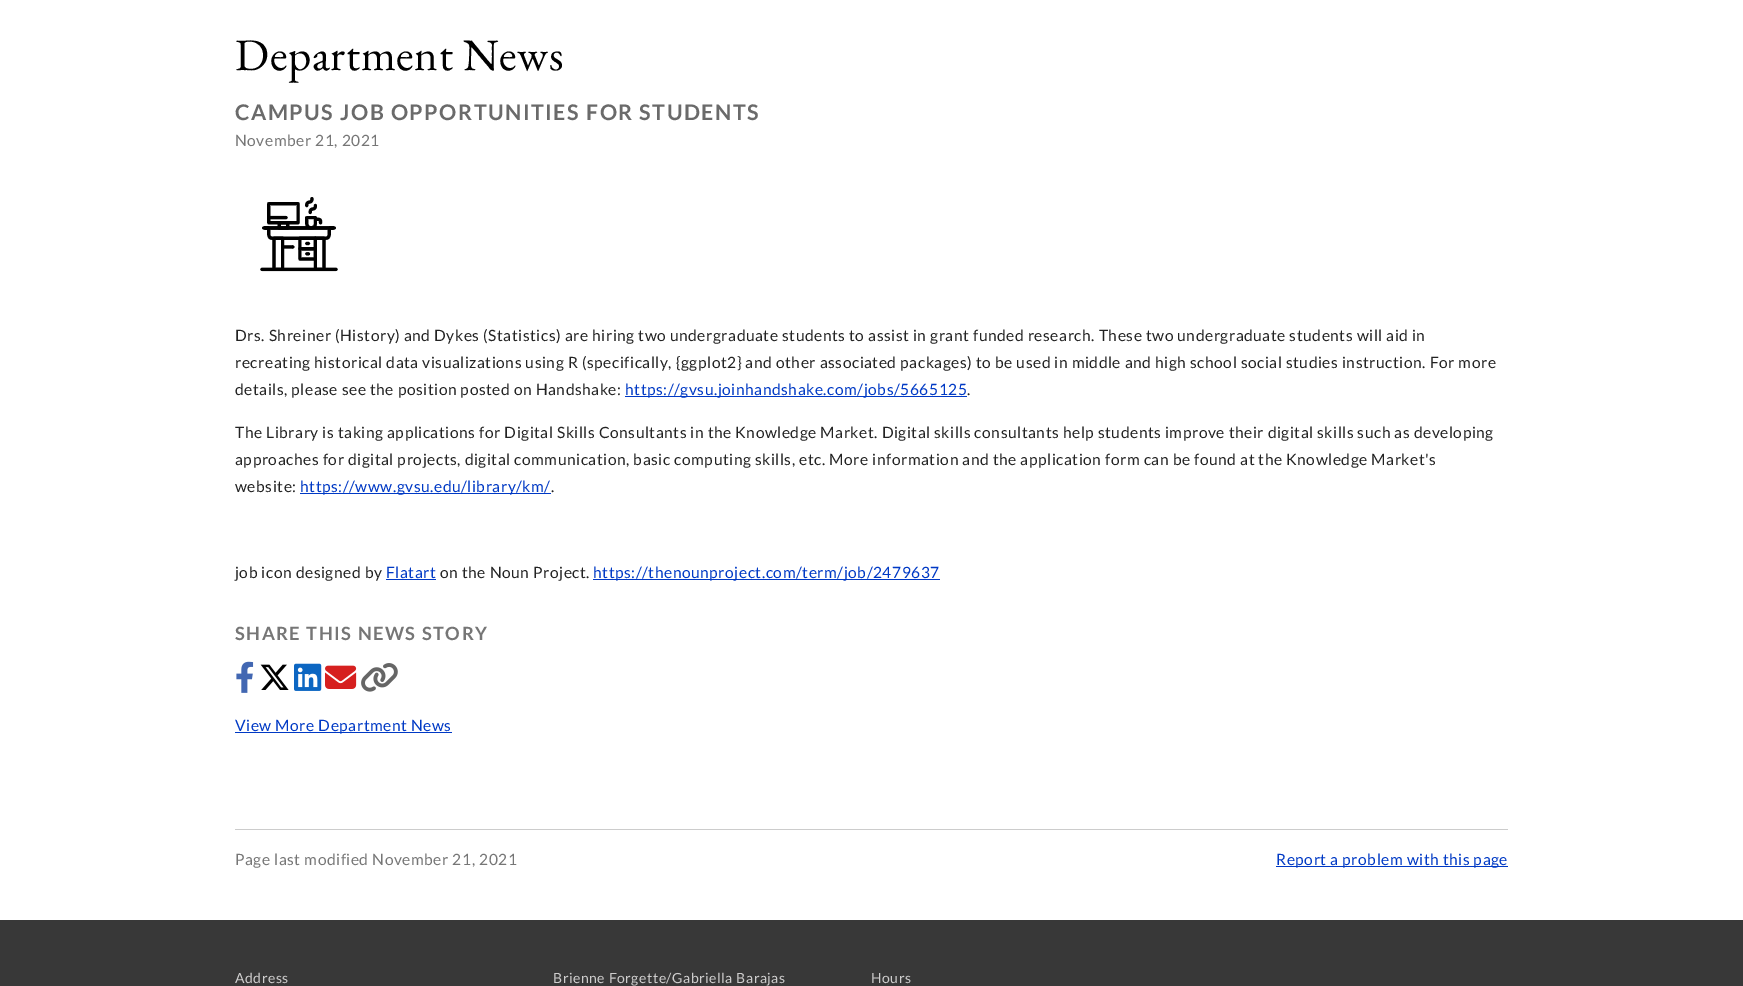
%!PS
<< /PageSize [1743 986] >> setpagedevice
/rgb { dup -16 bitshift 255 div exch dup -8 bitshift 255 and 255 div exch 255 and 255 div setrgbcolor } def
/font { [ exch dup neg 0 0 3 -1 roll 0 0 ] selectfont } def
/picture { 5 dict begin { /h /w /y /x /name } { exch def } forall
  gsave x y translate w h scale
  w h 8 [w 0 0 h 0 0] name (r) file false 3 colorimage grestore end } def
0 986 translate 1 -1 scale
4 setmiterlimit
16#FFFFFF rgb
0 0 1743 986 rectfill
/EBGaramond-Regular 45 font
16#000000 rgb
235 70 moveto 0.6 0 (Department News) ashow
/Lato-Bold 21.5 font
16#6A6A6A rgb
235 120 moveto 1.5 0 (CAMPUS JOB OPPORTUNITIES FOR STUDENTS) ashow
/Lato-Regular 15.55 font
16#767676 rgb
235 146 moveto 0.54 0 (November 21, 2021) ashow
(pic1.raw) 260 197 78 75 picture
16#232323 rgb
235 341 moveto 0.54 0 (Drs. Shreiner \(History\) and Dykes \(Statistics\) are hiring two undergraduate students to assist in grant funded research. These two undergraduate students will aid in) ashow
235 368 moveto 0.54 0 (recreating historical data visualizations using R \(specifically, {ggplot2} and other associated packages\) to be used in middle and high school social studies instruction. For more) ashow
235 395 moveto 0.54 0 (details, please see the position posted on Handshake:) ashow
16#0039C5 rgb
625 396 342 1 rectfill
625 395 moveto 0.54 0 (https://gvsu.joinhandshake.com/jobs/5665125) ashow
16#232323 rgb
967 395 moveto 0.54 0 (.) ashow
235 438 moveto 0.54 0 (The Library is taking applications for Digital Skills Consultants in the Knowledge Market. Digital skills consultants help students improve their digital skills such as developing) ashow
235 465 moveto 0.54 0 (approaches for digital projects, digital communication, basic computing skills, etc. More information and the application form can be found at the Knowledge Market's) ashow
235 492 moveto 0.54 0 (website:) ashow
16#0039C5 rgb
300 493 251 1 rectfill
300 492 moveto 0.54 0 (https://www.gvsu.edu/library/km/) ashow
16#232323 rgb
551 492 moveto 0.54 0 (.) ashow
235 578 moveto 0.54 0 (job icon designed by) ashow
16#0039C5 rgb
386 578 moveto 0.54 0 (Flatart) ashow
386 579 50 1 rectfill
16#232323 rgb
440 578 moveto 0.54 0 (on the Noun Project.) ashow
16#0039C5 rgb
593 579 347 1 rectfill
593 578 moveto 0.54 0 (https://thenounproject.com/term/job/2479637) ashow
/Lato-Bold 18.25 font
16#767676 rgb
235 640 moveto 1.5 0 (SHARE THIS NEWS STORY) ashow
(pic2.raw) 236 661 18 32 picture
(pic3.raw) 260 664 29 26 picture
(pic4.raw) 294 663 28 28 picture
(pic5.raw) 325 665 32 24 picture
(pic6.raw) 361 663 37 29 picture
16#0039C5 rgb
235 732 217 1 rectfill
/Lato-Regular 15.55 font
235 731 moveto 0.54 0 (View More Department News) ashow
16#CCCCCC rgb
235 829 1273 1 rectfill
16#767676 rgb
235 865 moveto 0.54 0 (Page last modified November 21, 2021) ashow
16#0039C5 rgb
1276 866 232 1 rectfill
1276 865 moveto 0.54 0 (Report a problem with this page) ashow
16#383838 rgb
0 920 1743 66 rectfill
/Lato-Regular 14 font
16#CECDCD rgb
235 983 moveto 0.54 0 (Address) ashow
553 983 moveto 0.54 0 (Brienne Forgette/Gabriella Barajas) ashow
871 983 moveto 0.54 0 (Hours) ashow
showpage
